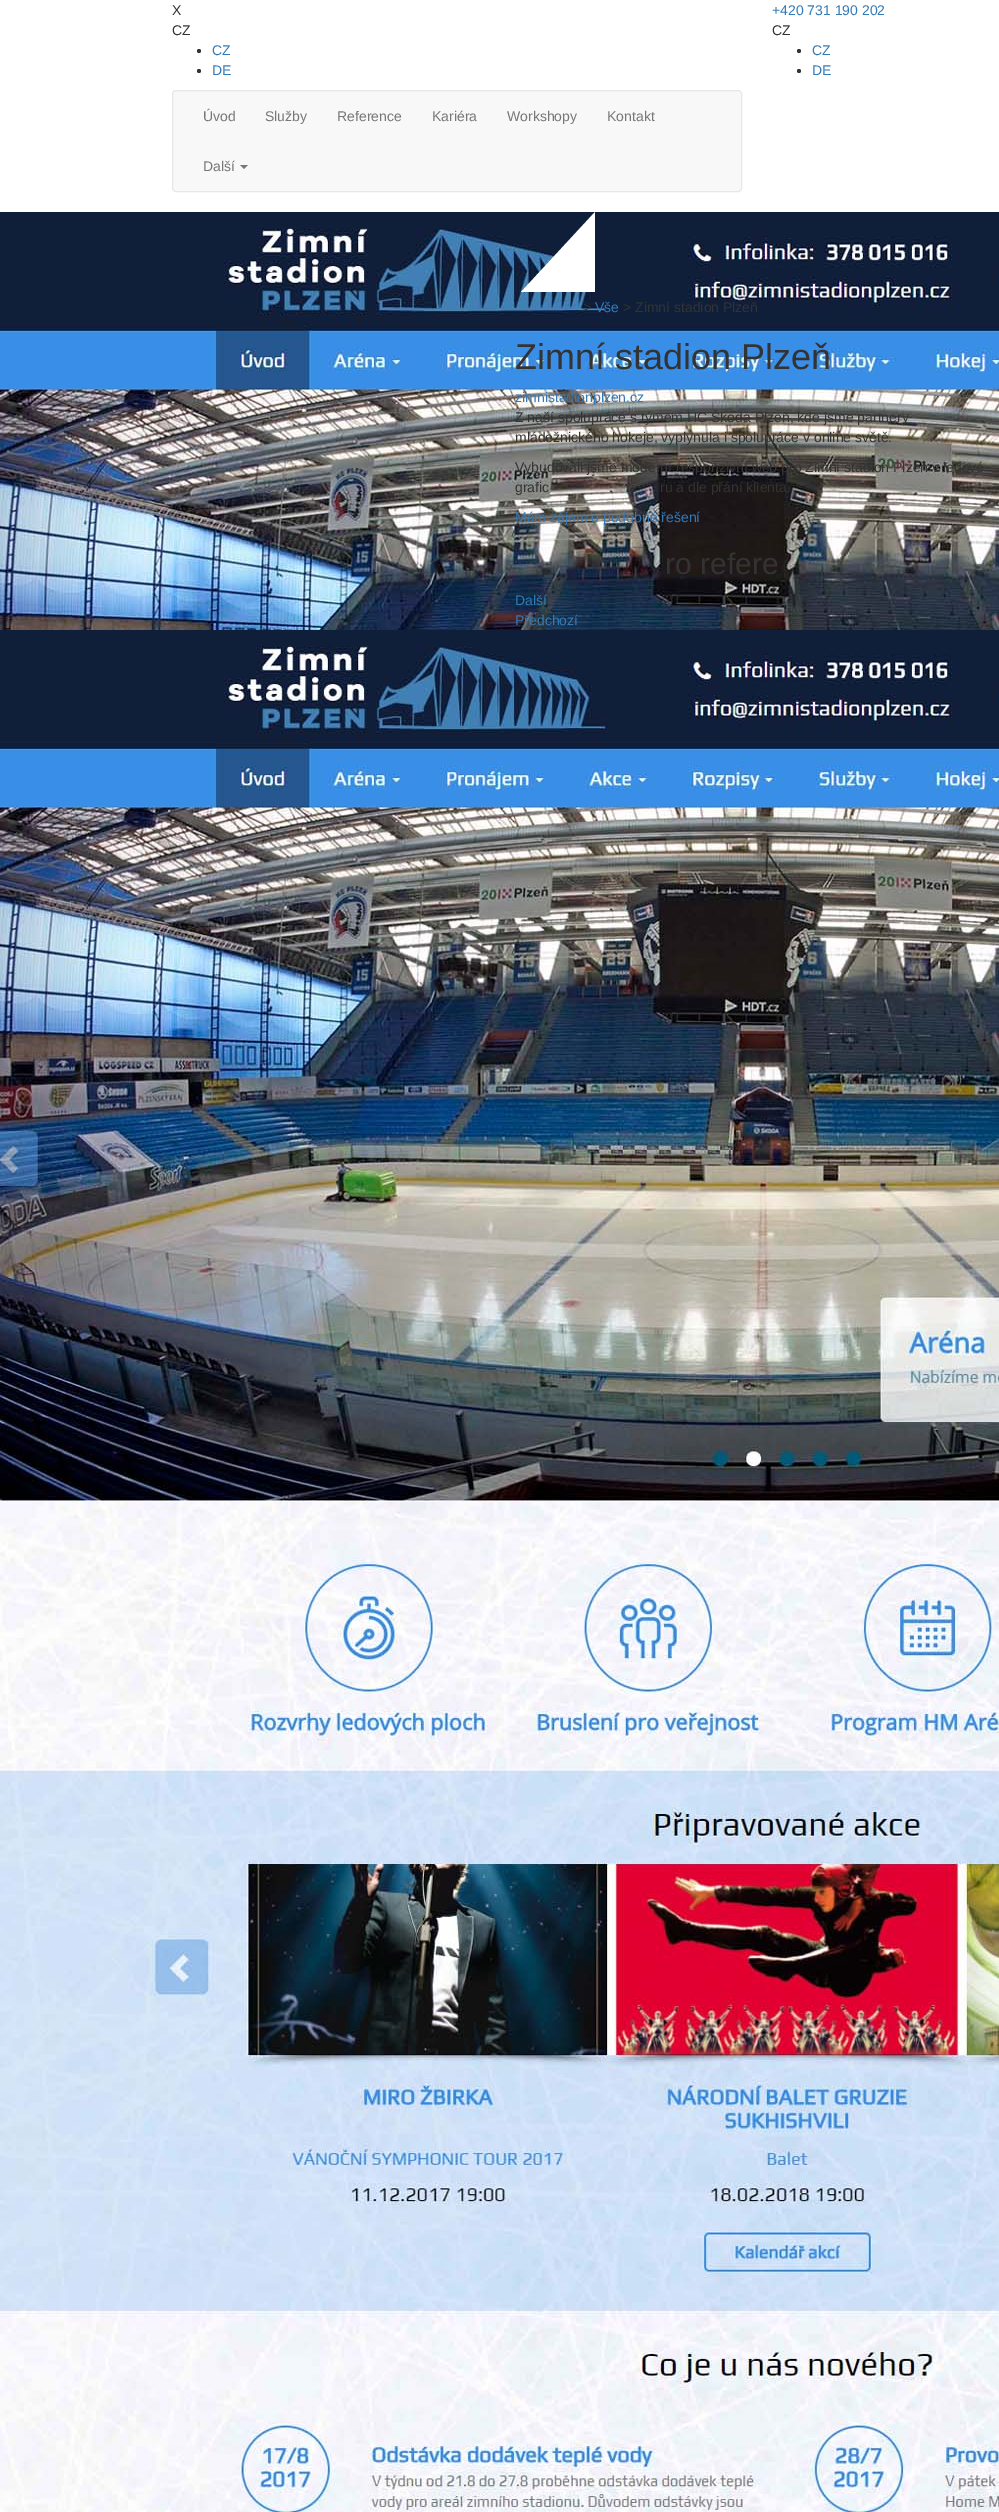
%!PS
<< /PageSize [999 2512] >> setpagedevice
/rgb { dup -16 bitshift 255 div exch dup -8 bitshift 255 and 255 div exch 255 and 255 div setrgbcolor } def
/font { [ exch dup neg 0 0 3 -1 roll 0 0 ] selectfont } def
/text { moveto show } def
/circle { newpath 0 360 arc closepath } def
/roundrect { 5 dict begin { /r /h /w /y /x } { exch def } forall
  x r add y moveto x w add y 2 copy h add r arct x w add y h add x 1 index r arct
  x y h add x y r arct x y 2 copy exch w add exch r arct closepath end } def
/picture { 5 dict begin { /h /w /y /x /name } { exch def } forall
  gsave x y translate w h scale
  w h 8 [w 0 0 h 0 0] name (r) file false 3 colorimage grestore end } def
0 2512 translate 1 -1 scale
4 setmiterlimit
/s1 { /LiberationSans-Regular 14 font 16#333333 rgb } def
/s2 { /LiberationSans-Regular 14 font 16#337AB7 rgb } def
/s3 { /LiberationSans-Regular 14 font 16#777777 rgb } def
/s4 { /LiberationSans-Regular 36 font 16#333333 rgb } def
/s5 { /LiberationSans-Regular 30 font 16#333333 rgb } def
16#FFFFFF rgb
0 0 999 2512 rectfill
s1
(X) 172 15 text
(CZ) 172 35 text
199 51 2 circle fill
s2
(CZ) 212 55 text
16#333333 rgb
199 71 2 circle fill
s2
(DE) 212 75 text
16#F8F8F8 rgb
172.5 90.5 569 101 3.5 roundrect gsave fill grestore
16#E7E7E7 rgb
stroke
s3
(Úvod) 203 121 text
(Služby) 265 121 text
(Reference) 337 121 text
(Kariéra) 432 121 text
(Workshopy) 507 121 text
(Kontakt) 607 121 text
(Další) 203 171 text
240 165 moveto 248 165 lineto 244 169 lineto closepath fill
s2
(+420 731 190 202) 772 15 text
s1
(CZ) 772 35 text
799 51 2 circle fill
s2
(CZ) 812 55 text
16#333333 rgb
799 71 2 circle fill
s2
(DE) 812 75 text
(pic1.raw) 0 212 999 418 picture
16#FFFFFF rgb
595 212 moveto 595 292 lineto 521 292 lineto closepath fill
s1
(>) 583 312 text
s2
(Vše) 595 312 text
s1
(> Zimní stadion Plzeň) 623 312 text
s4
(Zimní stadion Plzeň) 515 369 text
s2
(zimnistadionplzen.cz) 515 402 text
s1
(Z naší spolupráce s týmem HC Škoda Plzeň, kde jsme partnery) 515 422 text
(mládežnického hokeje, vyplynula i spolupráce v online světě.) 515 442 text
(Vybudovali jsme moderní responzivní web pro Zimní stadion Plzeň v ledové) 515 472 text
(grafic) 515 492 text
(ru a dle přání klienta.) 660 492 text
s2
(Mám zájem o podobné řešení) 515 522 text
s5
(ro refere) 665 574 text
s2
(Další) 515 605 text
(Předchozí) 515 625 text
(pic2.raw) 0 630 999 1882 picture
showpage
